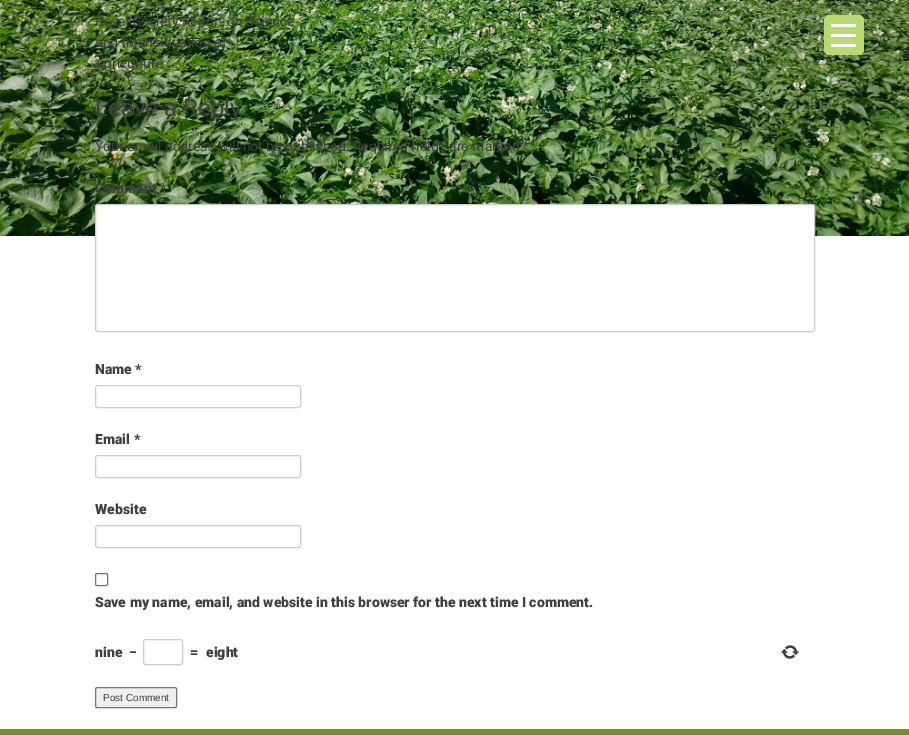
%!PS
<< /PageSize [909 735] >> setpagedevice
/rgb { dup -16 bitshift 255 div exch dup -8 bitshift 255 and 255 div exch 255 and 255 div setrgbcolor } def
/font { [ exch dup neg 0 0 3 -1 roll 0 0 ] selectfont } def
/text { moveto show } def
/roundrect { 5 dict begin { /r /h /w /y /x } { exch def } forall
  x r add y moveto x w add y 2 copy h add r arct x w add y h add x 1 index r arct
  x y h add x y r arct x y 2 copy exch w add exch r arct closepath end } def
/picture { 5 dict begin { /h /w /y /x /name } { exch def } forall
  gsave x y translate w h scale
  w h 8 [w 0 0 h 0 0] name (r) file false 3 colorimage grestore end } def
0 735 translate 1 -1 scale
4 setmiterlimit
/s1 { /Roboto-Regular 14 font 16#404040 rgb } def
/s2 { /Roboto-Regular 24 font 16#404040 rgb } def
/s3 { /Roboto-Black 14 font 16#404040 rgb } def
/s4 { /LiberationSans-Regular 10 font 16#404040 rgb } def
16#FFFFFF rgb
0 0 909 735 rectfill
(pic1.raw) 0 0 909 236 picture
s1
(Royal Society Report on Science) 95 26 text
(and Intensification of) 95 47 text
(Agriculture) 95 68 text
s2
(Leave a Reply) 95 116 text
s1
(Your email address will not be published. Required fields are marked *) 95 151 text
s3
(Comment *) 95 193 text
16#FFFFFF rgb
95.5 204.5 719 127 2.5 roundrect gsave fill grestore
16#CCCCCC rgb
stroke
s3
(Name *) 95 374 text
16#CCCCCC rgb
95.5 385.5 205 22 2.5 roundrect stroke
s3
(Email *) 95 444 text
16#CCCCCC rgb
95.5 455.5 205 22 2.5 roundrect stroke
s3
(Website) 95 514 text
16#CCCCCC rgb
95.5 525.5 205 22 2.5 roundrect stroke
16#767676 rgb
95.5 573.5 12 12 1.5 roundrect stroke
s3
(Save my name, email, and website in this browser for the next time I comment.) 95 607 text
(nine) 95 657 text
(−) 129 657 text
16#CCCCCC rgb
143.5 639.5 39 25 2.5 roundrect stroke
s3
(=) 190 657 text
(eight) 206 657 text
(pic2.raw) 780 645 20 14 picture
16#EFEFEF rgb
95.5 687.5 81 20 1.5 roundrect gsave fill grestore
16#767676 rgb
stroke
s4
(Post Comment) 103 701 text
16#BAD873 rgb
824 15 40 40 5 roundrect fill
16#FFFFFF rgb
831 34 25 3 1.5 roundrect fill
831 24 25 3 1.5 roundrect fill
831 44 25 3 1.5 roundrect fill
16#6F902C rgb
0 729 909 6 rectfill
showpage
